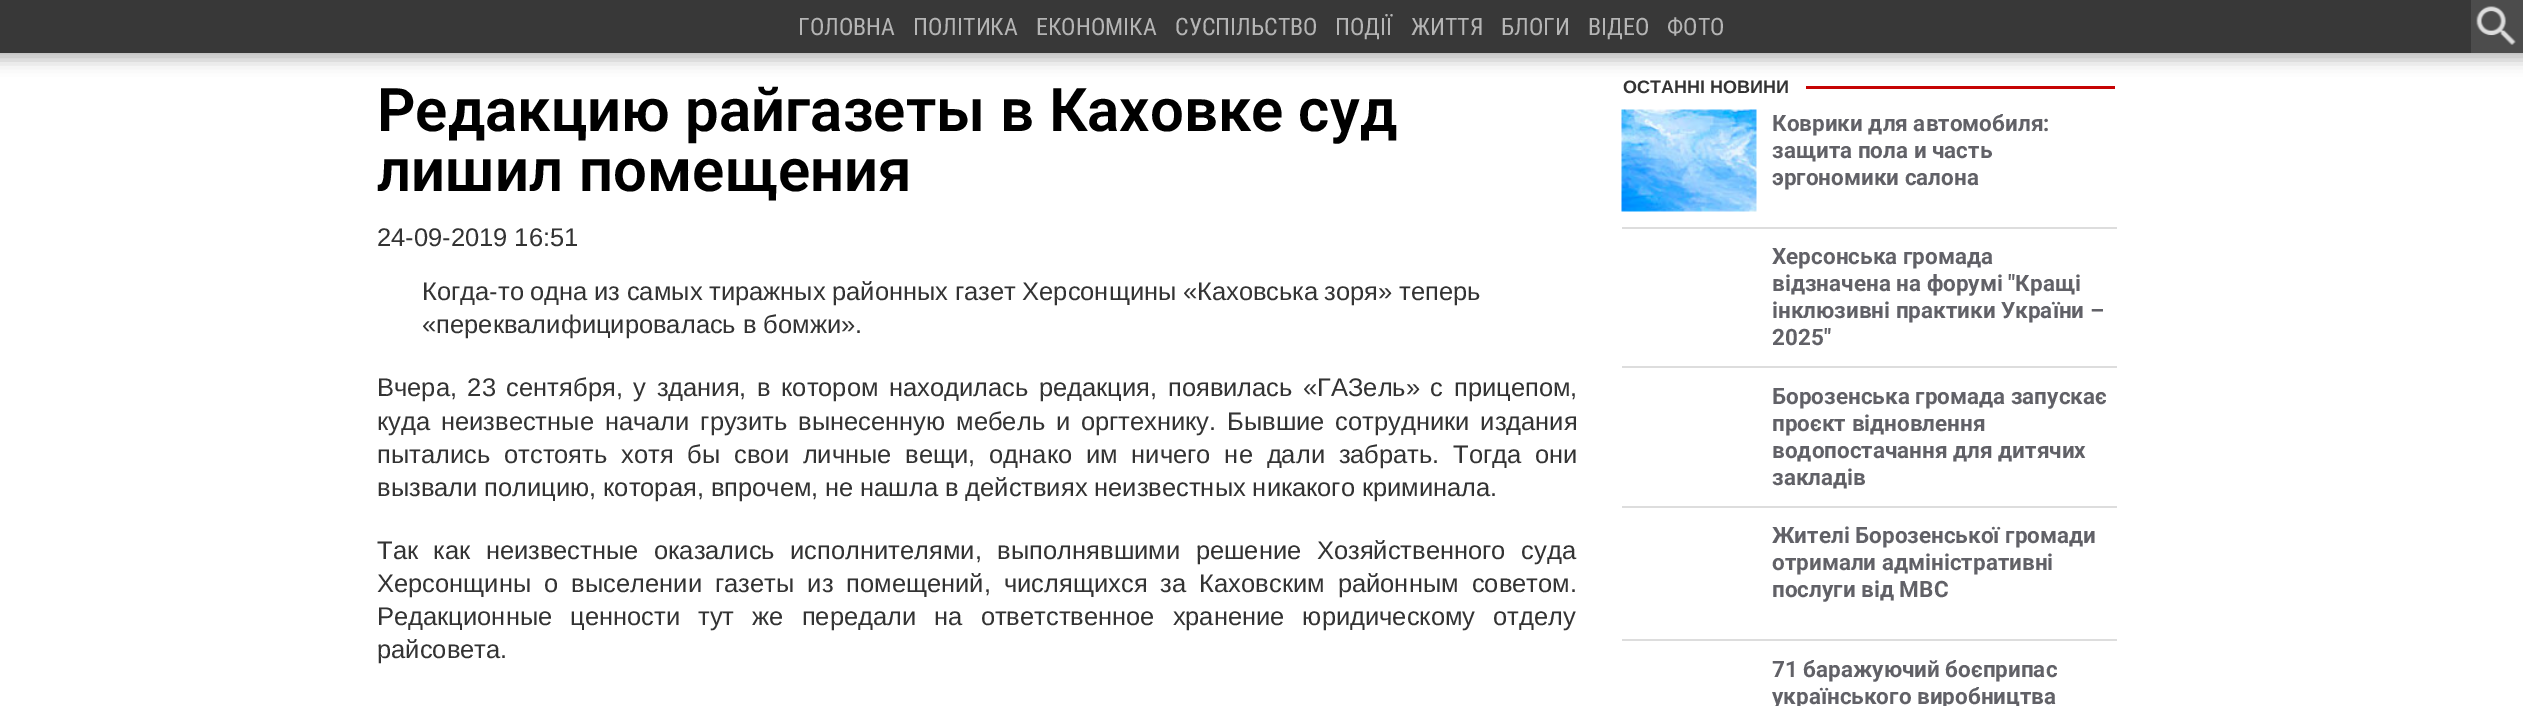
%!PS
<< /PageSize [2523 706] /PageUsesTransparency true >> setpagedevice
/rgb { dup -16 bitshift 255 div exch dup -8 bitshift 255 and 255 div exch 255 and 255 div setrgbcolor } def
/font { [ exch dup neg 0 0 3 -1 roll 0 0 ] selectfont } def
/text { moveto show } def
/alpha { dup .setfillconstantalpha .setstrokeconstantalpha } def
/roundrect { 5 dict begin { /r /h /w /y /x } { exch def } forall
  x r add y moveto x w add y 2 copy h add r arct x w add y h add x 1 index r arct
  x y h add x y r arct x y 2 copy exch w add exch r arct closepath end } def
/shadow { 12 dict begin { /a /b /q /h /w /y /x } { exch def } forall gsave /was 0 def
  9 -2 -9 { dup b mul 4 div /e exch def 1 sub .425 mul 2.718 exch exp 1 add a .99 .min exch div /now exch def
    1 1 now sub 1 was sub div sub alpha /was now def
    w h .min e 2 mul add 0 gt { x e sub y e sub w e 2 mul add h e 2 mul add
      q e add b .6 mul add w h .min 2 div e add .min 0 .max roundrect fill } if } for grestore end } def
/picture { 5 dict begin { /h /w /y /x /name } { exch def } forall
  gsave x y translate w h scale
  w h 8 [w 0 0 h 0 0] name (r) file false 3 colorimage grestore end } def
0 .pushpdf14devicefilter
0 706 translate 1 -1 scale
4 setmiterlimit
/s1 { /RobotoCondensed-Regular 24 font 16#B5B5B5 rgb } def
/s2 { /Roboto-SemiBold 60 font 16#000000 rgb } def
/s3 { /LiberationSans-Regular 25.5 font 16#333333 rgb } def
/s4 { /LiberationSans-Bold 18 font 16#333333 rgb } def
/s5 { /Roboto-Bold 22.5 font 16#616167 rgb } def
16#FFFFFF rgb
0 0 2523 706 rectfill
16#1A1A1A rgb
-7 -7 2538 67 0 7.5 0.3 shadow
16#383838 rgb
0 0 2471 53 rectfill
s1
(ГОЛОВНА) 798 35 text
(ПОЛІТИКА) 913 35 text
(ЕКОНОМІКА) 1036 35 text
(СУСПІЛЬСТВО) 1175 35 text
(ПОДІЇ) 1335 35 text
(ЖИТТЯ) 1411 35 text
(БЛОГИ) 1501 35 text
(ВІДЕО) 1588 35 text
(ФОТО) 1667 35 text
16#4C4C4C rgb
2471 0 52 53 rectfill
(pic1.raw) 2476 6 40 39 picture
s2
(Редакцию райгазеты в Каховке суд) 377 131 text
377 191 moveto 1 0 32 (лишил помещения) widthshow
s3
(24-09-2019 16:51) 377 246 text
422 300 moveto -0.5 0 32 (Когда-то одна из самых тиражных районных газет Херсонщины «Каховська зоря» теперь) widthshow
(«переквалифицировалась в бомжи».) 422 333 text
377 396 moveto 3.5 0 32 (Вчера, 23 сентября, у здания, в котором находилась редакция, появилась «ГАЗель» с прицепом,) widthshow
377 430 moveto 3.75 0 32 (куда неизвестные начали грузить вынесенную мебель и оргтехнику. Бывшие сотрудники издания) widthshow
377 463 moveto 6.75 0 32 (пытались отстоять хотя бы свои личные вещи, однако им ничего не дали забрать. Тогда они) widthshow
377 496 moveto -0.25 0 32 (вызвали полицию, которая, впрочем, не нашла в действиях неизвестных никакого криминала.) widthshow
377 559 moveto 8.5 0 32 (Так как неизвестные оказались исполнителями, выполнявшими решение Хозяйственного суда) widthshow
377 592 moveto 6 0 32 (Херсонщины о выселении газеты из помещений, числящихся за Каховским районным советом.) widthshow
377 625 moveto 11 0 32 (Редакционные ценности тут же передали на ответственное хранение юридическому отделу) widthshow
(райсовета.) 377 658 text
s4
(ОСТАННІ НОВИНИ) 1623 93 text
16#C60304 rgb
1806 86 309 3 rectfill
(pic2.raw) 1621 109 136 103 picture
s5
(Коврики для автомобиля:) 1772 131 text
(защита пола и часть) 1772 158 text
(эргономики салона) 1772 185 text
16#DDDDDD rgb
1622 227 495 2 rectfill
s5
(Херсонська громада) 1772 264 text
(відзначена на форумі "Кращі) 1772 291 text
(інклюзивні практики України –) 1772 318 text
(2025") 1772 345 text
16#DDDDDD rgb
1622 366 495 2 rectfill
s5
(Борозенська громада запускає) 1772 404 text
(проєкт відновлення) 1772 431 text
(водопостачання для дитячих) 1772 458 text
(закладів) 1772 485 text
16#DDDDDD rgb
1622 506 495 2 rectfill
s5
(Жителі Борозенської громади) 1772 543 text
(отримали адміністративні) 1772 570 text
(послуги від МВС) 1772 597 text
16#DDDDDD rgb
1622 639 495 2 rectfill
s5
(71 баражуючий боєприпас) 1772 677 text
(українського виробництва) 1772 704 text
.poppdf14devicefilter showpage
